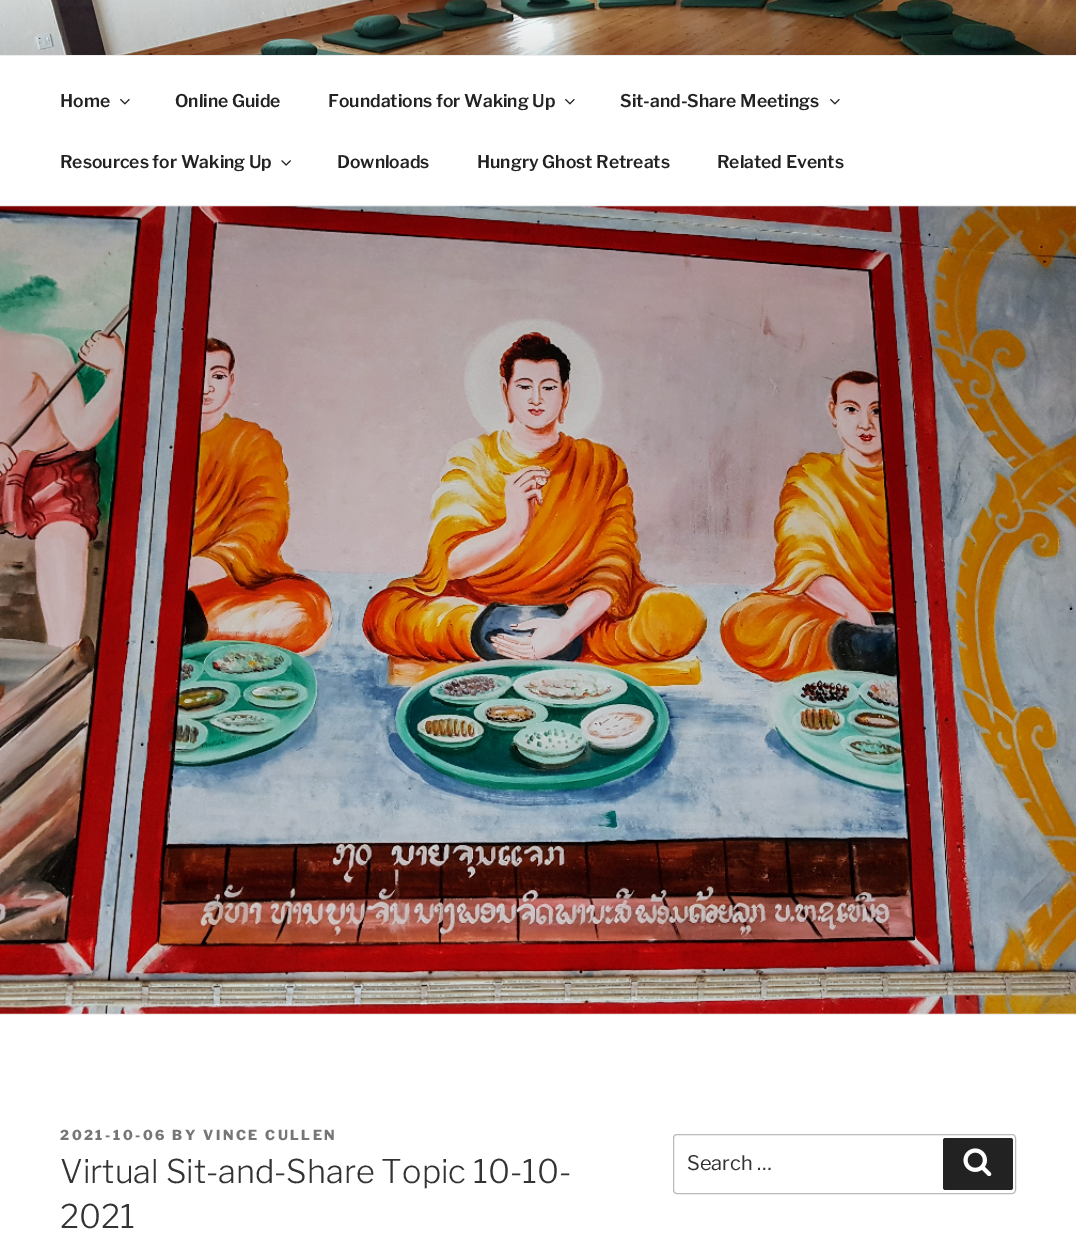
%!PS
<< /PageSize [1076 1250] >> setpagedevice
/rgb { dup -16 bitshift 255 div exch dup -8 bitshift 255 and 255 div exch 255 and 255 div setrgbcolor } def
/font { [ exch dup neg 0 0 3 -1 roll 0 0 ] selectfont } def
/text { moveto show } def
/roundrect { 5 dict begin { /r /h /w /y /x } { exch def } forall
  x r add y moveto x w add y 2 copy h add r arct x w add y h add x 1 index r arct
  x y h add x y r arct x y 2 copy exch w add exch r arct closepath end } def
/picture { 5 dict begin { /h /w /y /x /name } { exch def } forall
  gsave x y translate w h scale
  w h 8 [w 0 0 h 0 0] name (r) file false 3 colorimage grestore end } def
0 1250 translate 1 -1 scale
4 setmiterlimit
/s1 { /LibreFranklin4-Thin 17.5 font 16#222222 rgb } def
/s2 { /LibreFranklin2-Thin 32.5 font 16#333333 rgb } def
/s3 { /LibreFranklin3-Thin 20 font 16#333333 rgb } def
16#FFFFFF rgb
0 0 1076 1250 rectfill
(pic1.raw) 0 0 1076 55 picture
16#EEEEEE rgb
0 55 1076 1 rectfill
0 205 1076 1 rectfill
s1
(Home) 60 107 text
(pic2.raw) 120 98 10 7 picture
(Online Guide) 175 107 text
(Foundations for Waking Up) 328 107 text
(pic2.raw) 565 98 10 7 picture
(Sit-and-Share Meetings) 620 107 text
(pic2.raw) 830 98 10 7 picture
(Resources for Waking Up) 60 168 text
(pic3.raw) 281 160 10 6 picture
(Downloads) 337 168 text
(Hungry Ghost Retreats) 477 168 text
(Related Events) 717 168 text
16#EEEEEE rgb
0 1014 1076 1 rectfill
(pic4.raw) 0 206 1076 808 picture
/LibreFranklin-Thin 13.75 font
16#767676 rgb
60 1140 moveto 2.5 0 (2021-10-06 BY VINCE CULLEN) ashow
s2
(Virtual Sit-and-Share Topic 10-10-) 60 1183 text
(2021) 60 1228 text
16#BBBBBB rgb
673.5 1134.5 342 59 3.5 roundrect stroke
s3
(Search …) 687 1170 text
16#222222 rgb
943 1138 70 52 2.5 roundrect fill
(pic5.raw) 963 1148 29 28 picture
showpage
